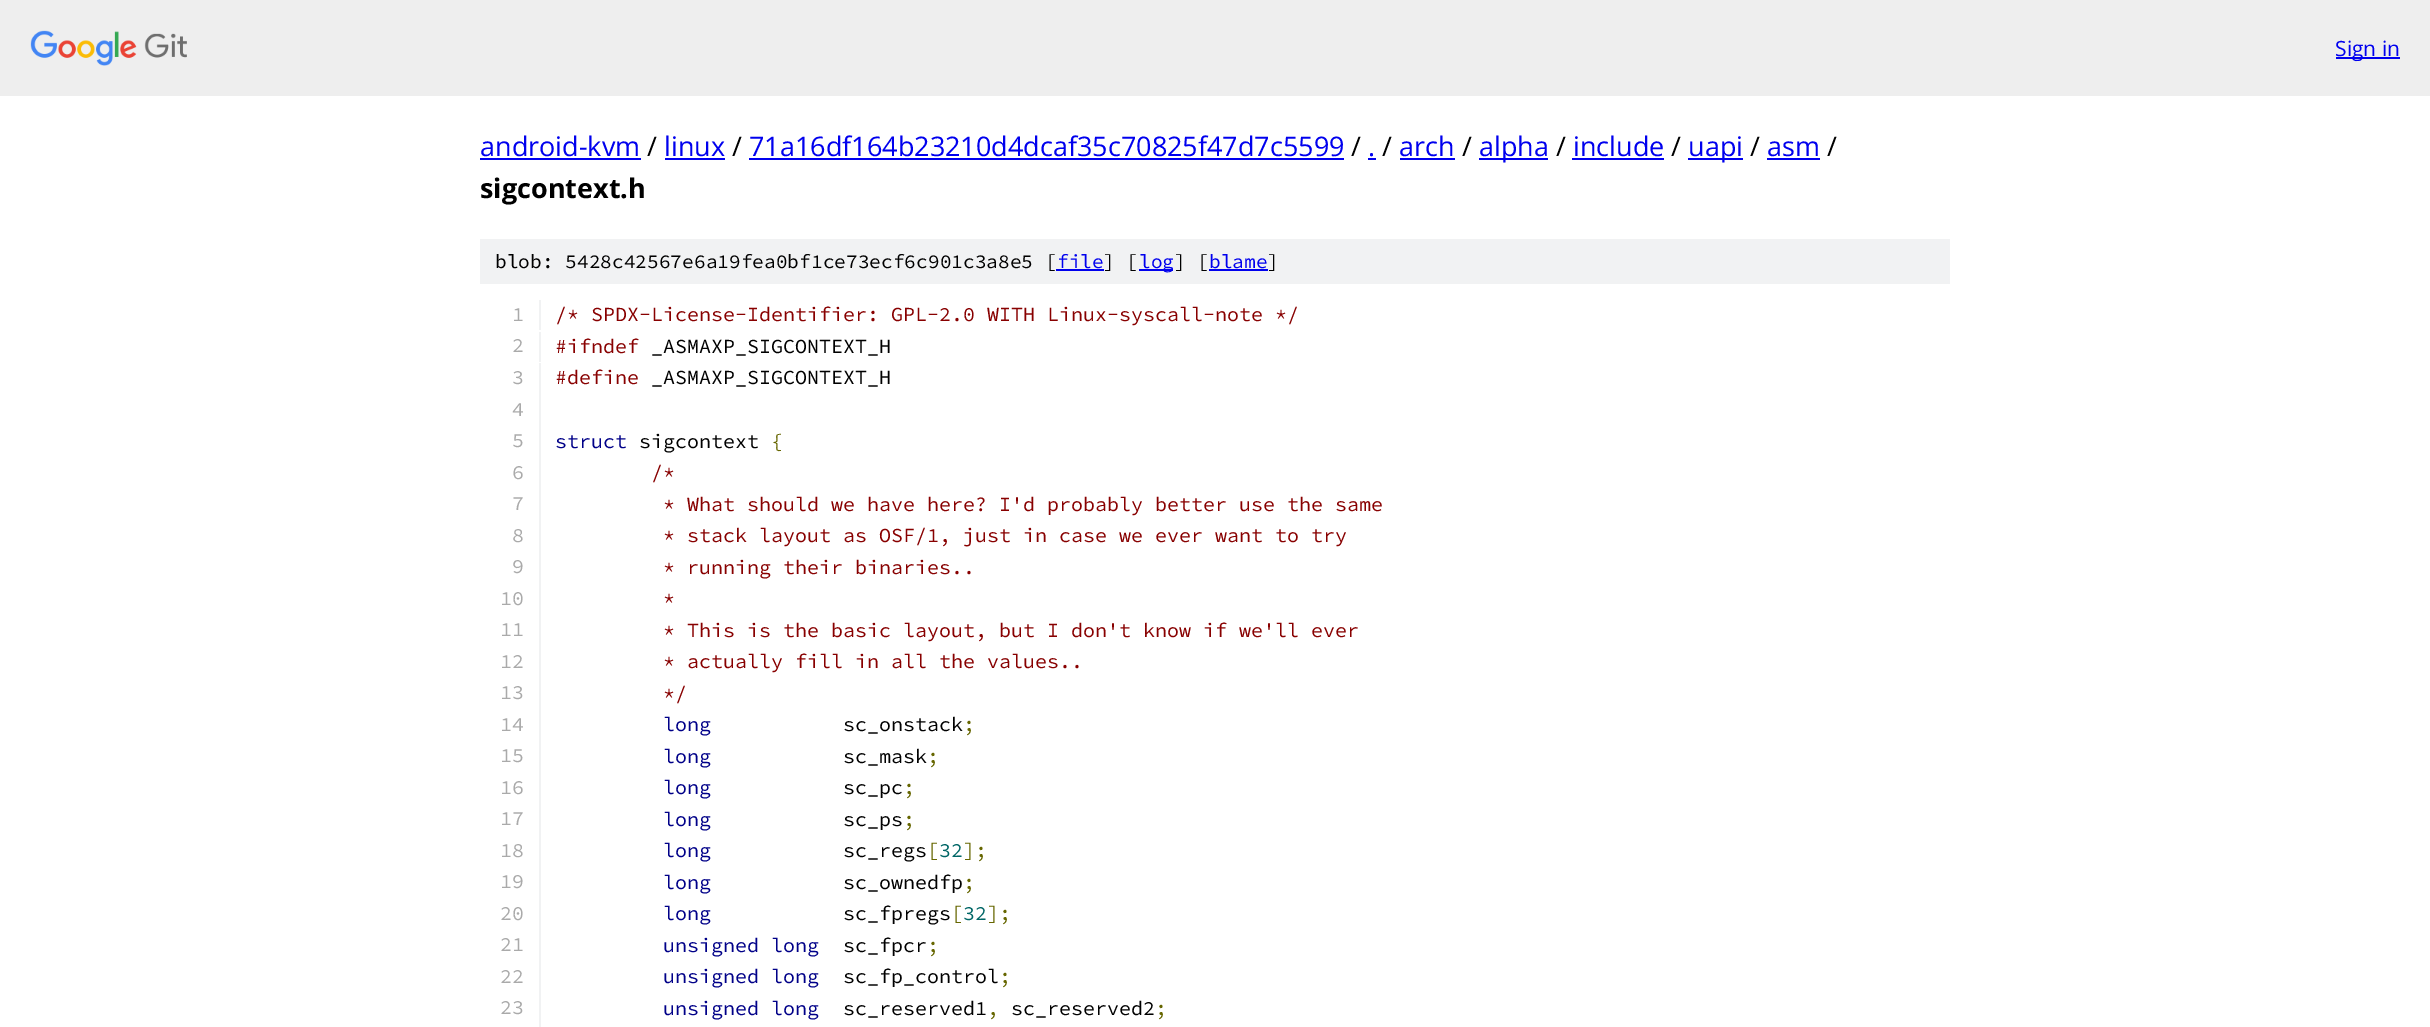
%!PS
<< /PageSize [2430 1027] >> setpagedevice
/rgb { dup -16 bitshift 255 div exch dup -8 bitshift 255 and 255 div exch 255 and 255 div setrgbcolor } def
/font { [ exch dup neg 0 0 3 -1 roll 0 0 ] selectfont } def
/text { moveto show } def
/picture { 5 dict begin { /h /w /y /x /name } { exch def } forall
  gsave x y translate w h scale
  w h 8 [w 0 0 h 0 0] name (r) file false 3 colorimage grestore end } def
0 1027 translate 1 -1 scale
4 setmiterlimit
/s1 { /OpenSans-Regular 21 font 16#0000EE rgb } def
/s2 { /OpenSans-Regular 27 font 16#0000EE rgb } def
/s3 { /OpenSans-Regular 27 font 16#000000 rgb } def
/s4 { /OpenSans-Bold 27 font 16#000000 rgb } def
/s5 { /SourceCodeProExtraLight-ExtraLight 19.5 font 16#000000 rgb } def
/s6 { /SourceCodeProExtraLight-ExtraLight 19.5 font 16#0000EE rgb } def
/s7 { /SourceCodeProExtraLight-ExtraLight 20 font 16#AAAAAA rgb } def
/s8 { /SourceCodeProExtraLight-ExtraLight 20 font 16#880000 rgb } def
/s9 { /SourceCodeProExtraLight-ExtraLight 20 font 16#000000 rgb } def
/s10 { /SourceCodeProExtraLight-ExtraLight 20 font 16#000088 rgb } def
/s11 { /SourceCodeProExtraLight-ExtraLight 20 font 16#666600 rgb } def
/s12 { /SourceCodeProExtraLight-ExtraLight 20 font 16#006666 rgb } def
16#FFFFFF rgb
0 0 2430 1027 rectfill
16#EEEEEE rgb
0 0 2430 96 rectfill
(pic1.raw) 30 30 157 36 picture
16#0000EE rgb
2336 57 64 2 rectfill
s1
(Sign in) 2335 56 text
s2
(android-kvm) 480 156 text
480 158 161 2 rectfill
s3
(/) 647 156 text
s2
(linux) 664 156 text
665 158 60 2 rectfill
s3
(/) 732 156 text
s2
(71a16df164b23210d4dcaf35c70825f47d7c5599) 749 156 text
749 158 595 2 rectfill
s3
(/) 1351 156 text
s2
(.) 1368 156 text
1368 158 8 2 rectfill
s3
(/) 1382 156 text
s2
(arch) 1399 156 text
1400 158 55 2 rectfill
s3
(/) 1462 156 text
16#0000EE rgb
1479 158 69 2 rectfill
(alpha) 1479 156 text
s3
(/) 1556 156 text
s2
(include) 1573 156 text
1572 158 92 2 rectfill
s3
(/) 1671 156 text
16#0000EE rgb
1688 158 55 2 rectfill
(uapi) 1688 156 text
s3
(/) 1750 156 text
s2
(asm) 1767 156 text
1767 158 53 2 rectfill
s3
(/) 1827 156 text
s4
(sigcontext.h) 480 198 text
16#F1F2F3 rgb
480 239 1470 45 rectfill
s5
(blob: 5428c42567e6a19fea0bf1ce73ecf6c901c3a8e5 [) 495 268 text
s6
(file) 1057 268 text
1056 269 48 2 rectfill
s5
(] [) 1103 268 text
16#0000EE rgb
1139 269 34 2 rectfill
(log) 1139 268 text
s5
(] [) 1174 268 text
s6
(blame) 1209 268 text
1209 269 59 2 rectfill
s5
(]) 1267 268 text
16#F1F2F3 rgb
539 300 2 30 rectfill
s7
(1) 512 321 text
s8
(/* SPDX-License-Identifier: GPL-2.0 WITH Linux-syscall-note */) 555 321 text
16#F1F2F3 rgb
539 332 2 30 rectfill
s7
(2) 512 352 text
s8
(#ifndef) 555 353 text
s9
(_ASMAXP_SIGCONTEXT_H) 651 353 text
16#F1F2F3 rgb
539 363 2 664 rectfill
s7
(3) 512 384 text
s8
(#define) 555 384 text
s9
(_ASMAXP_SIGCONTEXT_H) 651 384 text
s7
(4) 512 416 text
(5) 512 447 text
s10
(struct) 555 448 text
s9
(sigcontext) 639 448 text
s11
({) 771 448 text
s7
(6) 512 479 text
s8
(/*) 651 479 text
s7
(7) 512 510 text
s8
(* What should we have here? I'd probably better use the same) 663 511 text
s7
(8) 512 542 text
s8
(* stack layout as OSF/1, just in case we ever want to try) 663 542 text
s7
(9) 512 573 text
s8
(* running their binaries..) 663 574 text
s7
(10) 500 605 text
s8
(*) 663 605 text
s7
(11) 500 636 text
s8
(* This is the basic layout, but I don't know if we'll ever) 663 637 text
s7
(12) 500 668 text
s8
(* actually fill in all the values..) 663 668 text
s7
(13) 500 699 text
s8
(*/) 663 700 text
s7
(14) 500 731 text
s10
(long) 663 731 text
s9
(sc_onstack) 843 731 text
s11
(;) 963 731 text
s7
(15) 500 762 text
s10
(long) 663 763 text
s9
(sc_mask) 843 763 text
s11
(;) 927 763 text
s7
(16) 500 794 text
s10
(long) 663 794 text
s9
(sc_pc) 843 794 text
s11
(;) 903 794 text
s7
(17) 500 825 text
s10
(long) 663 826 text
s9
(sc_ps) 843 826 text
s11
(;) 903 826 text
s7
(18) 500 857 text
s10
(long) 663 857 text
s9
(sc_regs) 843 857 text
s11
([) 927 857 text
s12
(32) 939 857 text
s11
(];) 963 857 text
s7
(19) 500 888 text
s10
(long) 663 889 text
s9
(sc_ownedfp) 843 889 text
s11
(;) 963 889 text
s7
(20) 500 920 text
s10
(long) 663 920 text
s9
(sc_fpregs) 843 920 text
s11
([) 951 920 text
s12
(32) 963 920 text
s11
(];) 987 920 text
s7
(21) 500 951 text
s10
(unsigned long) 663 952 text
s9
(sc_fpcr) 843 952 text
s11
(;) 927 952 text
s7
(22) 500 983 text
s10
(unsigned long) 663 983 text
s9
(sc_fp_control) 843 983 text
s11
(;) 999 983 text
s7
(23) 500 1014 text
s10
(unsigned long) 663 1015 text
s9
(sc_reserved1) 843 1015 text
s11
(,) 987 1015 text
s9
(sc_reserved2) 1011 1015 text
s11
(;) 1155 1015 text
showpage
